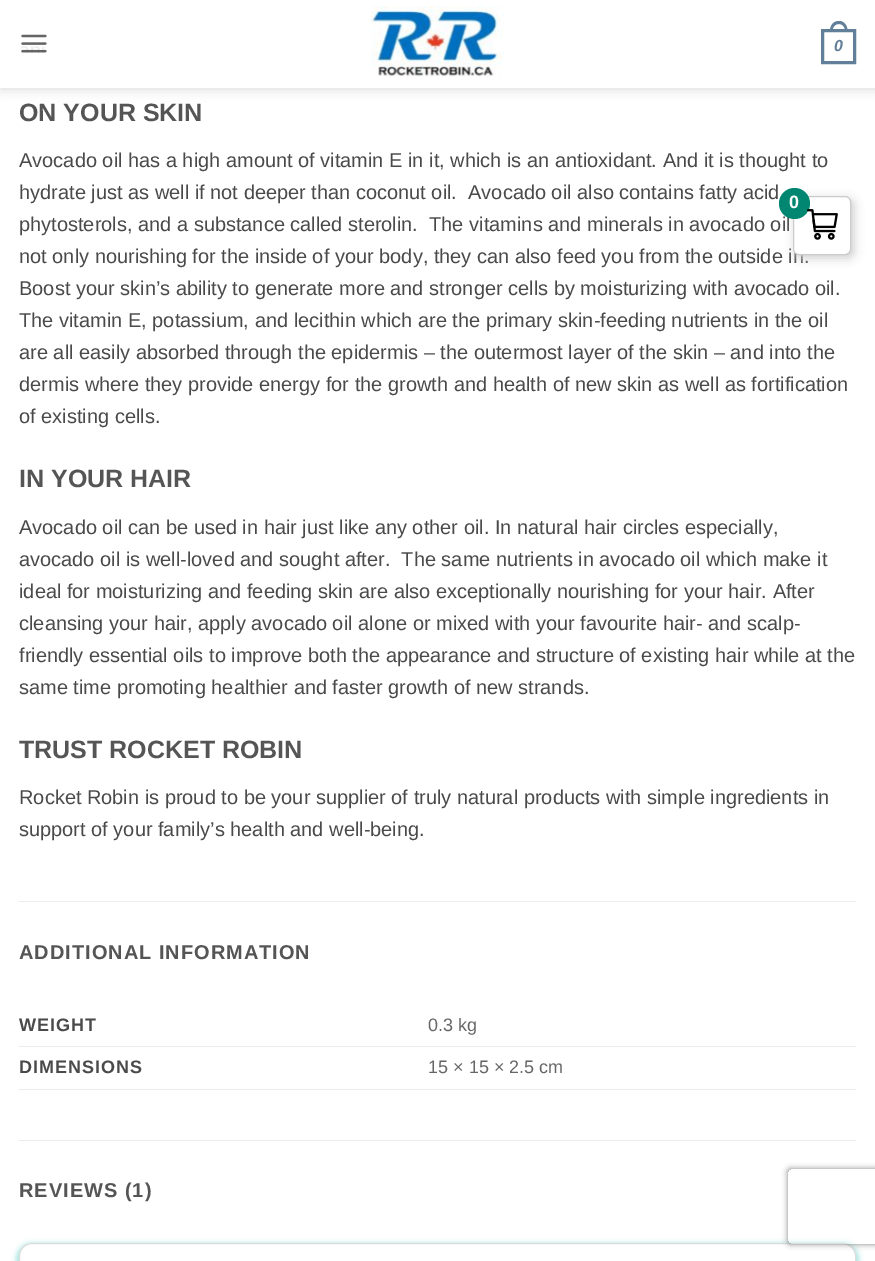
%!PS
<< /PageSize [875 1261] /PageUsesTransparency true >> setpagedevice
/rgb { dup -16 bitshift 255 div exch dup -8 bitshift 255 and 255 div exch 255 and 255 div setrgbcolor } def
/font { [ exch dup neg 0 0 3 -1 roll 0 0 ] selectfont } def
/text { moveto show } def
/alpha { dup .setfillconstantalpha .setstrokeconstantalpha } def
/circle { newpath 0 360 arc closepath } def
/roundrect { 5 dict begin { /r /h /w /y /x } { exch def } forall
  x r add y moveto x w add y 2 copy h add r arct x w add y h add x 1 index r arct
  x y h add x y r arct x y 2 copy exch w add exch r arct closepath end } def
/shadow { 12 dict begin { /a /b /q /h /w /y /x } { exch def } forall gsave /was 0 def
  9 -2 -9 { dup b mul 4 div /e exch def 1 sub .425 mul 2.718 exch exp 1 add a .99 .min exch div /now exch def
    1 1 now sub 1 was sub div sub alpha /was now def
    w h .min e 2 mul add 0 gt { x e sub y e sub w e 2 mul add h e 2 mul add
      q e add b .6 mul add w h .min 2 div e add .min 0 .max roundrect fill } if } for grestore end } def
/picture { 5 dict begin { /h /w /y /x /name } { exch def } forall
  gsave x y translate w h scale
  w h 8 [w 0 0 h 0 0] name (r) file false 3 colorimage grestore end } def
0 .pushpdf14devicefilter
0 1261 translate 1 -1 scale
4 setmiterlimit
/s1 { /LiberationSans-BoldItalic 16 font 16#627F9A rgb } def
/s2 { /LiberationSans-Bold 25 font 16#555555 rgb } def
/s3 { /LiberationSans-Regular 20 font 16#4A4A4A rgb } def
/s4 { /LiberationSans-Regular 18 font 16#666666 rgb } def
/s5 { /LiberationSans-Bold 18 font 16#FFFFFF rgb } def
16#FFFFFF rgb
0 0 875 1261 rectfill
gsave
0 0 moveto 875 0 lineto 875 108 lineto 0 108 lineto closepath 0 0 moveto 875 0 lineto 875 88 lineto 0 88 lineto closepath eoclip newpath
16#000000 rgb
1 1 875 88 0 6 0.15 shadow
grestore
(pic1.raw) 21 34 26 19 picture
(pic2.raw) 371 6 133 71 picture
16#627F9A rgb
3 setlinewidth
822.5 30.5 32 32 rectstroke
839 21 moveto 844.5 21 847.5 26 847.5 31 curveto 830 31 lineto 830 26 833 21 839 21 curveto closepath 839 24 moveto 843 24 845 27.5 845 31 curveto 832.5 31 lineto 832.5 27.5 834.5 24 839 24 curveto closepath eofill
s1
(0) 834 51 text
0.9 alpha
16#FFFFFF rgb
0 87 875 1 rectfill
1 alpha
s2
(ON YOUR SKIN) 19 121 text
s3
(Avocado oil has a high amount of vitamin E in it, which is an antioxidant. And it is thought to) 19 167 text
(hydrate just as well if not deeper than coconut oil.  Avocado oil also contains fatty acid) 19 199 text
(phytosterols, and a substance called sterolin.  The vitamins and minerals in avocado oil) 19 231 text
(not only nourishing for the inside of your body, they can also feed you from the outside in.) 19 263 text
(Boost your skin’s ability to generate more and stronger cells by moisturizing with avocado oil.) 19 295 text
(The vitamin E, potassium, and lecithin which are the primary skin-feeding nutrients in the oil) 19 327 text
(are all easily absorbed through the epidermis – the outermost layer of the skin – and into the) 19 359 text
(dermis where they provide energy for the growth and health of new skin as well as fortification) 19 391 text
(of existing cells.) 19 423 text
s2
(IN YOUR HAIR) 19 487 text
s3
(Avocado oil can be used in hair just like any other oil. In natural hair circles especially,) 19 534 text
(avocado oil is well-loved and sought after.  The same nutrients in avocado oil which make it) 19 566 text
(ideal for moisturizing and feeding skin are also exceptionally nourishing for your hair. After) 19 598 text
(cleansing your hair, apply avocado oil alone or mixed with your favourite hair- and scalp-) 19 630 text
(friendly essential oils to improve both the appearance and structure of existing hair while at the) 19 662 text
(same time promoting healthier and faster growth of new strands.) 19 694 text
s2
(TRUST ROCKET ROBIN) 19 758 text
s3
(Rocket Robin is proud to be your supplier of truly natural products with simple ingredients in) 19 804 text
(support of your family’s health and well-being.) 19 836 text
16#ECECEC rgb
19 901 837 1 rectfill
/LiberationSans-Bold 20 font
16#555555 rgb
19 959 moveto 1 0 (ADDITIONAL INFORMATION) ashow
16#ECECEC rgb
19 1046 837 1 rectfill
/LiberationSans-Bold 18 font
16#4A4A4A rgb
19 1031 moveto 1 0 (WEIGHT) ashow
s4
(0.3 kg) 428 1031 text
16#ECECEC rgb
19 1089 837 1 rectfill
/LiberationSans-Bold 18 font
16#4A4A4A rgb
19 1073 moveto 1 0 (DIMENSIONS) ashow
s4
(15 × 15 × 2.5 cm) 428 1073 text
16#ECECEC rgb
19 1140 837 1 rectfill
/LiberationSans-Bold 20 font
16#555555 rgb
19 1197 moveto 1 0 (REVIEWS \(1\)) ashow
16#0EB7A8 rgb
16 1243 843 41 15 2.5 0.33 shadow
16#FFFFFF rgb
19.5 1243.5 836 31 12.5 roundrect gsave fill grestore
16#DCDCDC rgb
1 setlinewidth
stroke
16#CCCCCC rgb
795 199 59 59 6 5 1 shadow
16#FFFFFF rgb
793.5 196.5 57 58 5.5 roundrect gsave fill grestore
16#CCCCCC rgb
stroke
16#008671 rgb
794.5 203.5 15.5 circle fill
s5
(0) 789 208 text
(pic3.raw) 807 209 31 31 picture
gsave
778 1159 moveto 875 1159 lineto 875 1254 lineto 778 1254 lineto closepath 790.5 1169 moveto 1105.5 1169 lineto 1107 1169 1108 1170 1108 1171.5 curveto 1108 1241.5 lineto 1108 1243 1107 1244 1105.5 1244 curveto 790.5 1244 lineto 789 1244 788 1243 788 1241.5 curveto 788 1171.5 lineto 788 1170 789 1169 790.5 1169 curveto closepath eoclip newpath
16#808080 rgb
788 1169 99 75 2.5 3 1 shadow
grestore
.poppdf14devicefilter showpage
